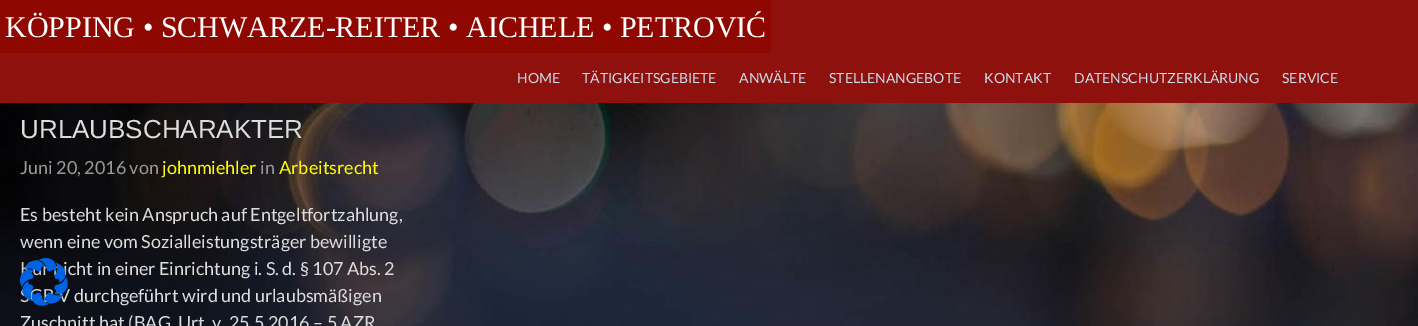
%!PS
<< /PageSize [1418 326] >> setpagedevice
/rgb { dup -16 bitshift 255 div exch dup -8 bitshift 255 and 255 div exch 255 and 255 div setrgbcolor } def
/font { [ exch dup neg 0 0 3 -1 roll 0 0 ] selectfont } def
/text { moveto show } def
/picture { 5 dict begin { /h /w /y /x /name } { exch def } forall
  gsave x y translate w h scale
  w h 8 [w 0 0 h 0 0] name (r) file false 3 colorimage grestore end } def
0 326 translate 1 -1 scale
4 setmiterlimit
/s1 { /LiberationSerif-Regular 30 font 16#FFFFFF rgb } def
/s2 { /Lato-Regular 14 font 16#CDDDEB rgb } def
/s3 { /LiberationSans-Regular 26 font 16#DDDDDD rgb } def
/s4 { /Lato-Regular 18 font 16#999999 rgb } def
/s5 { /Lato-Regular 18 font 16#FFFF00 rgb } def
/s6 { /Lato-Regular 18 font 16#DDDDDD rgb } def
16#FFFFFF rgb
0 0 1418 326 rectfill
(pic1.raw) 0 103 1418 223 picture
16#8E110E rgb
0 0 1418 103 rectfill
16#8E0700 rgb
0 0 771 53 rectfill
s1
(KÖPPING • SCHWARZE-REITER • AICHELE • PETROVIĆ) 5 37 text
s2
(HOME) 517 83 text
(TÄTIGKEITSGEBIETE) 582 83 text
(ANWÄLTE) 739 83 text
(STELLENANGEBOTE) 829 83 text
(KONTAKT) 984 83 text
(DATENSCHUTZERKLÄRUNG) 1074 83 text
(SERVICE) 1282 83 text
s3
(URLAUBSCHARAKTER) 20 138 text
s4
(Juni 20, 2016 von) 20 174 text
s5
(johnmiehler) 162 174 text
s4
(in) 260 174 text
s5
(Arbeitsrecht) 279 174 text
s6
(Es besteht kein Anspruch auf Entgeltfortzahlung,) 20 221 text
(wenn eine vom Sozialleistungsträger bewilligte) 20 248 text
(cht in einer Einrichtung i. S. d. § 107 Abs. 2) 68 275 text
(durchgeführt wird und urlaubsmäßigen) 74 302 text
(Zuschnitt hat \(BAG, Urt. v. 25.5.2016 – 5 AZR) 20 329 text
(pic2.raw) 20 258 51 48 picture
showpage
